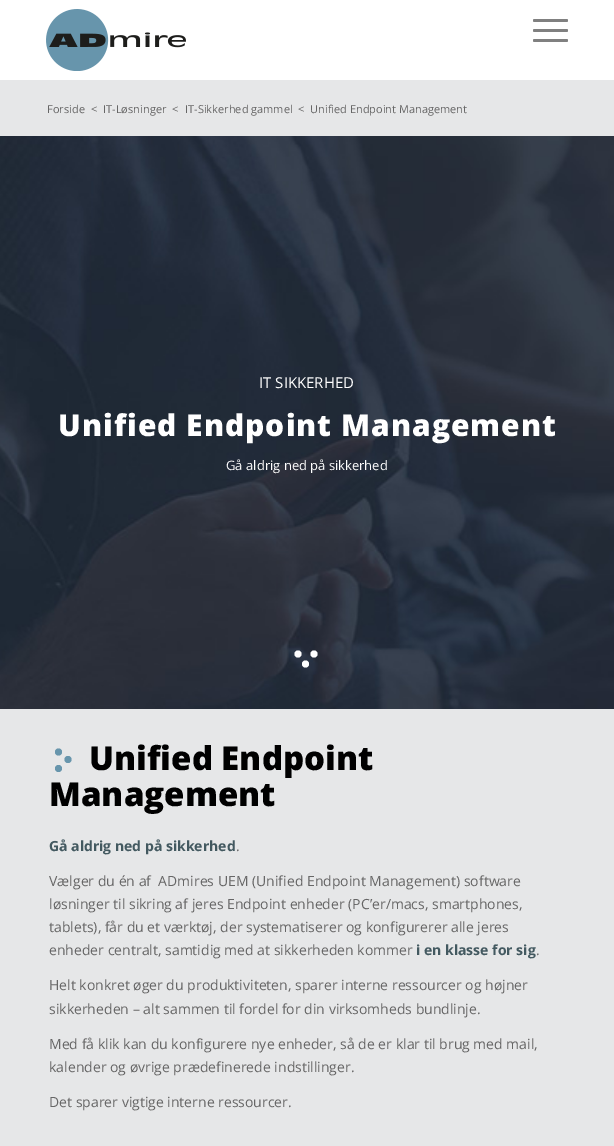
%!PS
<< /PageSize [614 1146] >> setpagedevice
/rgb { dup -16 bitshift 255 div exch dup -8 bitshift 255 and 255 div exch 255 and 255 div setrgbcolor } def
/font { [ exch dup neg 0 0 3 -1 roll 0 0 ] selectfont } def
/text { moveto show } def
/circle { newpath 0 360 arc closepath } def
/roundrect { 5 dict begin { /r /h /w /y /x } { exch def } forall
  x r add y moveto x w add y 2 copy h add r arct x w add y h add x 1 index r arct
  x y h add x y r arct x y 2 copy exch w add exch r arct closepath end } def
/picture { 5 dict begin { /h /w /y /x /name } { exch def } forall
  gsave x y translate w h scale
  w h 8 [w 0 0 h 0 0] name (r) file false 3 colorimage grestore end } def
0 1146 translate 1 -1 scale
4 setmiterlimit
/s1 { /OpenSans-Regular 11 font 16#666666 rgb } def
/s2 { /OpenSans-Regular 15 font 16#FFFFFF rgb } def
/s3 { /OpenSans-Regular 13 font 16#FFFFFF rgb } def
/s4 { /OpenSans-ExtraBold 33 font 16#000000 rgb } def
/s5 { /OpenSans-Bold 14 font 16#435960 rgb } def
/s6 { /OpenSans-Regular 14 font 16#666666 rgb } def
16#E6E7E8 rgb
0 0 614 1146 rectfill
16#FFFFFF rgb
0 0 614 80 rectfill
(pic1.raw) 46 9 140 62 picture
16#808080 rgb
533 29 35 3 1.5 roundrect fill
533 19 35 3 1.5 roundrect fill
533 39 35 3 1.5 roundrect fill
s1
(Forside) 47 113 text
(<) 91 113 text
(IT-Løsninger) 103 113 text
(<) 172 113 text
(IT-Sikkerhed gammel) 185 113 text
(<) 298 113 text
(Unified Endpoint Management) 310 113 text
(pic2.raw) 0 136 614 573 picture
s2
(IT SIKKERHED) 259 388 text
/OpenSans-ExtraBold 30 font
58 436 moveto 1 0 (Unified Endpoint Management) ashow
s3
(Gå aldrig ned på sikkerhed) 226 470 text
298 654 3.5 circle fill
314 654 3.5 circle fill
305.5 664 3.5 circle fill
16#6795AC rgb
58.5 752 3.5 circle fill
58.5 768.5 3.5 circle fill
68 759.5 3.5 circle fill
s4
(Unified Endpoint) 89 770 text
(Management) 49 806 text
s5
(Gå aldrig ned på sikkerhed) 49 851 text
s6
(.) 236 851 text
(Vælger du én af  ADmires UEM \(Unified Endpoint Management\) software) 49 886 text
(løsninger til sikring af jeres Endpoint enheder \(PC’er/macs, smartphones,) 49 909 text
(tablets\), får du et værktøj, der systematiserer og konfigurerer alle jeres) 49 932 text
(enheder centralt, samtidig med at sikkerheden kommer) 49 955 text
s5
(i en klasse for sig) 416 955 text
s6
(.) 536 955 text
(Helt konkret øger du produktiviteten, sparer interne ressourcer og højner) 49 990 text
(sikkerheden – alt sammen til fordel for din virksomheds bundlinje.) 49 1014 text
(Med få klik kan du konfigurere nye enheder, så de er klar til brug med mail,) 49 1049 text
(kalender og øvrige prædefinerede indstillinger.) 49 1072 text
(Det sparer vigtige interne ressourcer.) 49 1107 text
showpage
